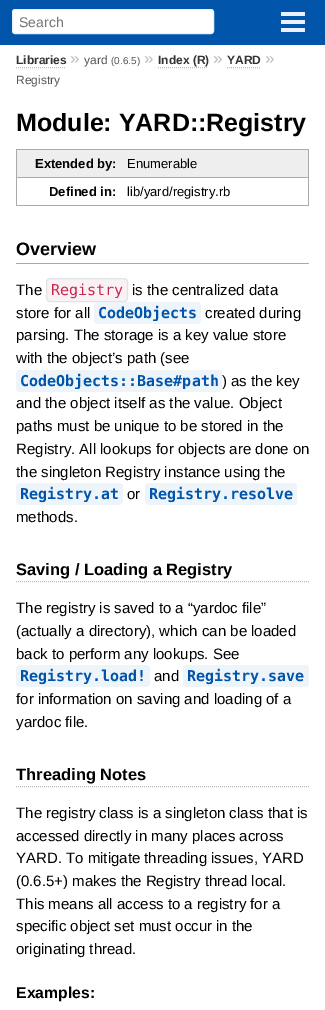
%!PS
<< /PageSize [325 1010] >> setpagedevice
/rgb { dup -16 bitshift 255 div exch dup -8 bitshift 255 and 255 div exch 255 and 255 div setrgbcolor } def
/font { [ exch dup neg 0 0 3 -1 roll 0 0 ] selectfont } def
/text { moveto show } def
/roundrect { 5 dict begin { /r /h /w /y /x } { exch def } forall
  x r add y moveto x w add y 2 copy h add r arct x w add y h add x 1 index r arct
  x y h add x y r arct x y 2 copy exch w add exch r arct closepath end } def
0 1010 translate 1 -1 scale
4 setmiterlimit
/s1 { /LiberationSans-Regular 14 font 16#757575 rgb } def
/s2 { /LiberationSans-Bold 12 font 16#333333 rgb } def
/s3 { /LiberationSans-Regular 17 font 16#BBBBBB rgb } def
/s4 { /LiberationSans-Regular 12 font 16#555555 rgb } def
/s5 { /LiberationSans-Regular 10 font 16#555555 rgb } def
/s6 { /LiberationSans-Bold 25 font 16#000000 rgb } def
/s7 { /LiberationSans-Bold 13 font 16#000000 rgb } def
/s8 { /LiberationSans-Regular 13 font 16#000000 rgb } def
/s9 { /LiberationSans-Bold 18 font 16#000000 rgb } def
/s10 { /LiberationSans-Regular 15 font 16#000000 rgb } def
/s11 { /DejaVuSansMono-Regular 15 font 16#C7254E rgb } def
/s12 { /DejaVuSansMono-Bold 15 font 16#0055AA rgb } def
/s13 { /LiberationSans-Bold 16.5 font 16#000000 rgb } def
/s14 { /LiberationSans-Bold 15.75 font 16#000000 rgb } def
16#FFFFFF rgb
0 0 325 1010 rectfill
16#0055AA rgb
0 0 325 45 rectfill
16#FFFFFF rgb
12.5 9.5 201 24 2.5 roundrect gsave fill grestore
16#EAF0FF rgb
stroke
s1
(Search) 19 27 text
16#EAF0FF rgb
281 12 24 4 1 roundrect fill
281 20 24 4 1 roundrect fill
281 28 24 4 1 roundrect fill
s2
(Libraries) 16 64 text
16#BBBBDD rgb
[1 1] 0 setdash
16 67.5 moveto 66 67.5 lineto stroke
s3
(») 70 64 text
s4
(yard) 84 64 text
s5
(\(0.6.5\)) 111 64 text
s3
(») 144 64 text
s2
(Index \(R\)) 158 64 text
16#BBBBDD rgb
158 67.5 moveto 208 67.5 lineto stroke
s3
(») 213 64 text
s2
(YARD) 227 64 text
16#BBBBDD rgb
227 67.5 moveto 261 67.5 lineto stroke
s3
(») 265 64 text
s4
(Registry) 16 84 text
s6
(Module: YARD::Registry) 16 131 text
16#EEEEEE rgb
17 150 291 27 rectfill
16#AAAAAA rgb
16 149 293 1 rectfill
16 149 1 28 rectfill
s7
(Extended by:) 35 168 text
16#AAAAAA rgb
16 177 293 1 rectfill
308 149 1 57 rectfill
s8
(Enumerable) 127 168 text
16#AAAAAA rgb
16 205 111 1 rectfill
16 177 1 29 rectfill
s7
(Defined in:) 49 196 text
16#AAAAAA rgb
127 205 182 1 rectfill
s8
(lib/yard/registry.rb) 127 196 text
16#AAAAAA rgb
16 263 293 1 rectfill
s9
(Overview) 16 255 text
s10
(The) 16 295 text
16#F9F2F4 rgb
46.5 278.5 81 23 3.5 roundrect gsave fill grestore
16#E1E1E8 rgb
[] 0 setdash
stroke
s11
(Registry) 51 295 text
s10
(is the centralized data) 132 295 text
(store for all) 16 318 text
16#EDF4FA rgb
94 302 107 22 4 roundrect fill
s12
(CodeObjects) 98 318 text
s10
(created during) 205 318 text
(parsing. The storage is a key value store) 16 340 text
(with the object’s path \(see) 16 363 text
16#EDF4FA rgb
16 370 206 22 4 roundrect fill
s12
(CodeObjects::Base#path) 20 386 text
s10
(\) as the key) 222 386 text
(and the object itself as the value. Object) 16 408 text
(paths must be unique to be stored in the) 16 431 text
(Registry. All lookups for objects are done on) 16 454 text
(the singleton Registry instance using the) 16 477 text
16#EDF4FA rgb
16 483 107 22 4 roundrect fill
s12
(Registry.at) 20 499 text
s10
(or) 127 499 text
16#EDF4FA rgb
145 483 152 22 4 roundrect fill
s12
(Registry.resolve) 149 499 text
s10
(methods.) 16 522 text
16#BBBBBB rgb
[1 1] 0 setdash
16 581.5 moveto 309 581.5 lineto stroke
s13
(Saving / Loading a Registry) 16 575 text
s10
(The registry is saved to a “yardoc file”) 16 613 text
(\(actually a directory\), which can be loaded) 16 636 text
(back to perform any lookups. See) 16 659 text
16#EDF4FA rgb
16 665 134 22 4 roundrect fill
s12
(Registry.load!) 20 681 text
s10
(and) 154 681 text
16#EDF4FA rgb
183 665 126 22 4 roundrect fill
s12
(Registry.save) 187 681 text
s10
(for information on saving and loading of a) 16 704 text
(yardoc file.) 16 727 text
16#BBBBBB rgb
16 786.5 moveto 309 786.5 lineto stroke
s13
(Threading Notes) 16 780 text
s10
(The registry class is a singleton class that is) 16 818 text
(accessed directly in many places across) 16 841 text
(YARD. To mitigate threading issues, YARD) 16 863 text
(\(0.6.5+\) makes the Registry thread local.) 16 886 text
(This means all access to a registry for a) 16 909 text
(specific object set must occur in the) 16 931 text
(originating thread.) 16 954 text
s14
(Examples:) 16 998 text
showpage
